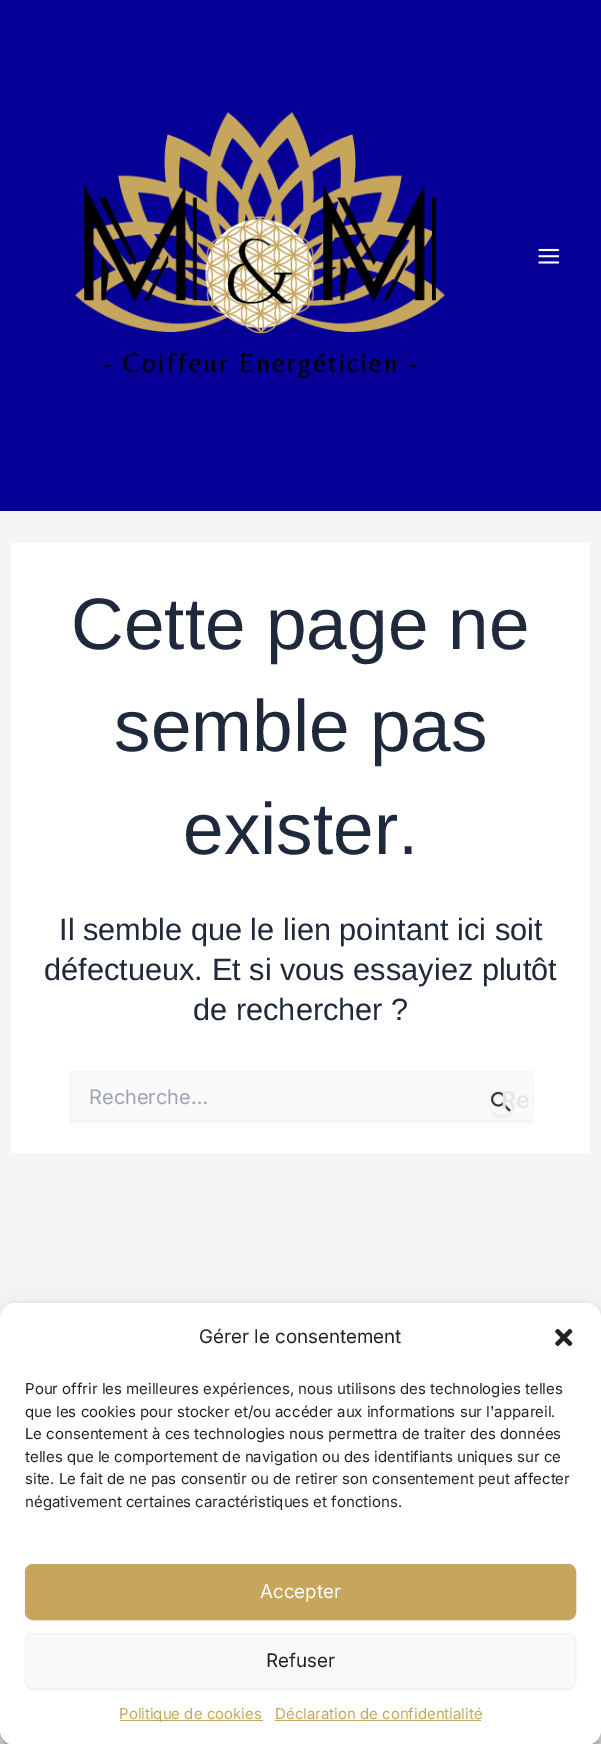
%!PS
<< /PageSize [601 1744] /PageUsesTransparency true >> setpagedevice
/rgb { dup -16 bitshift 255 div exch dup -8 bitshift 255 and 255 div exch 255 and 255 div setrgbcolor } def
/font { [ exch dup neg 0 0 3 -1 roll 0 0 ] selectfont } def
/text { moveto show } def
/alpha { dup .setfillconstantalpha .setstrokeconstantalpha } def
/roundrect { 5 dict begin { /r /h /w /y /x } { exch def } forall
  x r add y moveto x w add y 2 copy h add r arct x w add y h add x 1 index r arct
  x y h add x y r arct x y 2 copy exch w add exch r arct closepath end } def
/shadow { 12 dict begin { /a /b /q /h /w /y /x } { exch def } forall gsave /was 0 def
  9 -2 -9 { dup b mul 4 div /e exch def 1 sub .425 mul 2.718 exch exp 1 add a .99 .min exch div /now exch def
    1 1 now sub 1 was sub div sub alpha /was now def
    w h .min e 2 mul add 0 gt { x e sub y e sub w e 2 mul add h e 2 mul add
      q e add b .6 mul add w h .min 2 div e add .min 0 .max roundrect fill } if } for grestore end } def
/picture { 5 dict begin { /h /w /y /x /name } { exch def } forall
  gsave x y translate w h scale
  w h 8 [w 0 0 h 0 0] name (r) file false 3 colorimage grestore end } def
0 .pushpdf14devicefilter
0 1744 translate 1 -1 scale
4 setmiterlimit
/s1 { /LiberationSans-Regular 73 font 16#1E293B rgb } def
/s2 { /LiberationSans-Regular 30.75 font 16#1E293B rgb } def
/s3 { /Inter-Regular 20 font 16#9CA3AF rgb } def
/s4 { /Inter-SemiBold 23 font 16#E5E5E5 rgb } def
/s5 { /Inter-Regular 18.75 font 16#222222 rgb } def
/s6 { /Inter-Regular 15 font 16#222222 rgb } def
/s7 { /Inter-Regular 18.75 font 16#FFFFFF rgb } def
/s8 { /Inter-Regular 15 font 16#C6A55C rgb } def
16#F5F5F5 rgb
0 0 601 1744 rectfill
16#060097 rgb
0 0 601 511 rectfill
(pic1.raw) 75 112 370 267 picture
(pic2.raw) 538 248 22 16 picture
16#FFFFFF rgb
11 543 579 610 rectfill
s1
(Cette page ne) 71 649 text
(semble pas) 114 751 text
(exister.) 183 854 text
s2
(Il semble que le lien pointant ici soit) 59 940 text
(défectueux. Et si vous essayiez plutôt) 44 980 text
(de rechercher ?) 193 1020 text
16#000000 rgb
70 1073 463 50 2.5 1 0.05 shadow
16#FAFAFA rgb
70.5 1071.5 462 49 2 roundrect gsave fill grestore
16#F2F5F7 rgb
stroke
s3
(Recherche…) 89 1104 text
gsave
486 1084 moveto 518 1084 lineto 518 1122 lineto 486 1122 lineto closepath 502 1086 moveto 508.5 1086 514 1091.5 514 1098 curveto 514 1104 lineto 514 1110.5 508.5 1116 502 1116 curveto 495.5 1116 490 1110.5 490 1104 curveto 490 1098 lineto 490 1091.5 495.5 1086 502 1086 curveto closepath eoclip newpath
16#000000 rgb
490 1088 24 30 12 1 0.05 shadow
grestore
(pic3.raw) 491 1091 20 21 picture
s4
(Re) 501 1108 text
16#EEEEEE rgb
0 1730 601 14 rectfill
16#000000 rgb
0 1310 601 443 15 4 0.23 shadow
0 1315 601 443 15 12.5 0.19 shadow
16#FFFFFF rgb
0 1303 601 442 15 roundrect fill
s5
(Gérer le consentement) 199 1343 text
(pic4.raw) 555 1328 18 19 picture
s6
(Pour offrir les meilleures expériences, nous utilisons des technologies telles) 25 1394 text
(que les cookies pour stocker et/ou accéder aux informations sur l'appareil.) 25 1417 text
(Le consentement à ces technologies nous permettra de traiter des données) 25 1439 text
(telles que le comportement de navigation ou des identifiants uniques sur ce) 25 1462 text
(site. Le fait de ne pas consentir ou de retirer son consentement peut affecter) 25 1484 text
(négativement certaines caractéristiques et fonctions.) 25 1507 text
16#000000 rgb
25 1565 551 56 8 1 0.05 shadow
16#C6A55C rgb
25.5 1564.5 550 55 7.5 roundrect gsave fill grestore
stroke
s7
(Accepter) 260 1598 text
16#000000 rgb
25 1634 551 56 8 1 0.05 shadow
16#F9F9F9 rgb
25.5 1633.5 550 55 7.5 roundrect gsave fill grestore
16#F2F2F2 rgb
stroke
s5
(Refuser) 266 1667 text
16#C6A55C rgb
120 1720 143 1 rectfill
s8
(Politique de cookies) 119 1719 text
(Déclaration de confidentialité) 275 1719 text
275 1720 206 1 rectfill
.poppdf14devicefilter showpage
